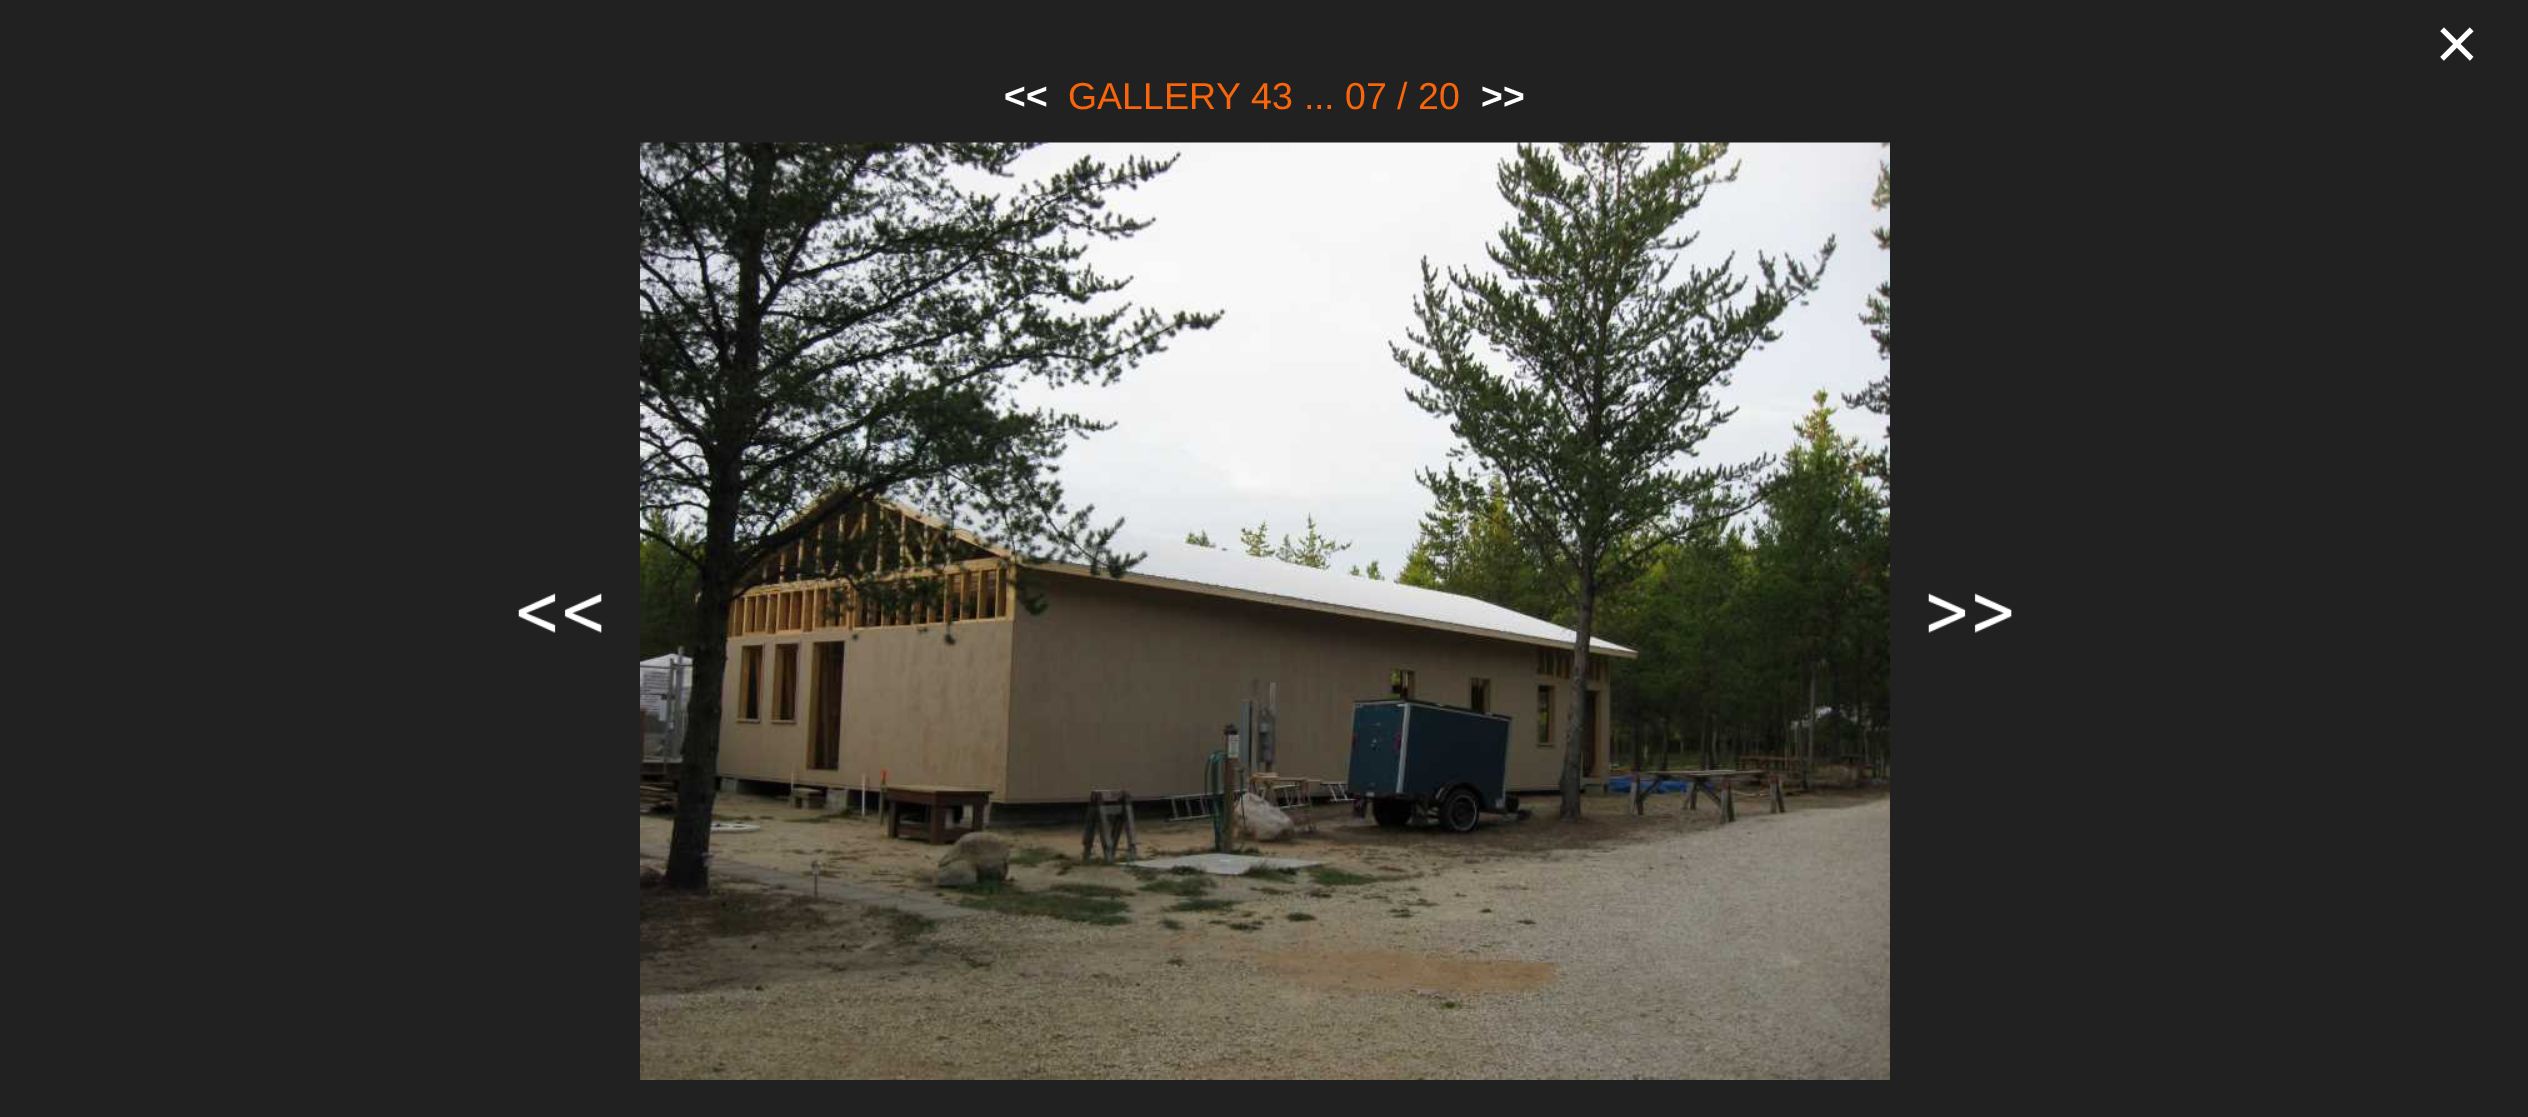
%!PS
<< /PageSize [2528 1117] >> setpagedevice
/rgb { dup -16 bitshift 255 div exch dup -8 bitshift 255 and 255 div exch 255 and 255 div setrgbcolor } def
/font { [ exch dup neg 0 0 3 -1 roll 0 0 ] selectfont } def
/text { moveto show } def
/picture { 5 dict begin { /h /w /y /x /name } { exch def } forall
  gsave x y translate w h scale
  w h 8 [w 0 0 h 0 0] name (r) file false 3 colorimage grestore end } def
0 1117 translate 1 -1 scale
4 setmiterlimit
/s1 { /LiberationSans-Regular 75 font 16#FFFFFF rgb } def
/s2 { /LiberationSans-Bold 37.5 font 16#FFFFFF rgb } def
/s3 { /LiberationSans-Regular 37.5 font 16#F9650B rgb } def
16#212121 rgb
0 0 2528 1117 rectfill
s1
(×) 2435 69 text
s2
(<<) 1004 109 text
s3
(GALLERY 43 ... 07 / 20) 1068 109 text
s2
(>>) 1481 109 text
(pic1.raw) 518 593 84 40 picture
(pic2.raw) 640 142 1250 938 picture
(pic3.raw) 1928 593 84 40 picture
showpage
